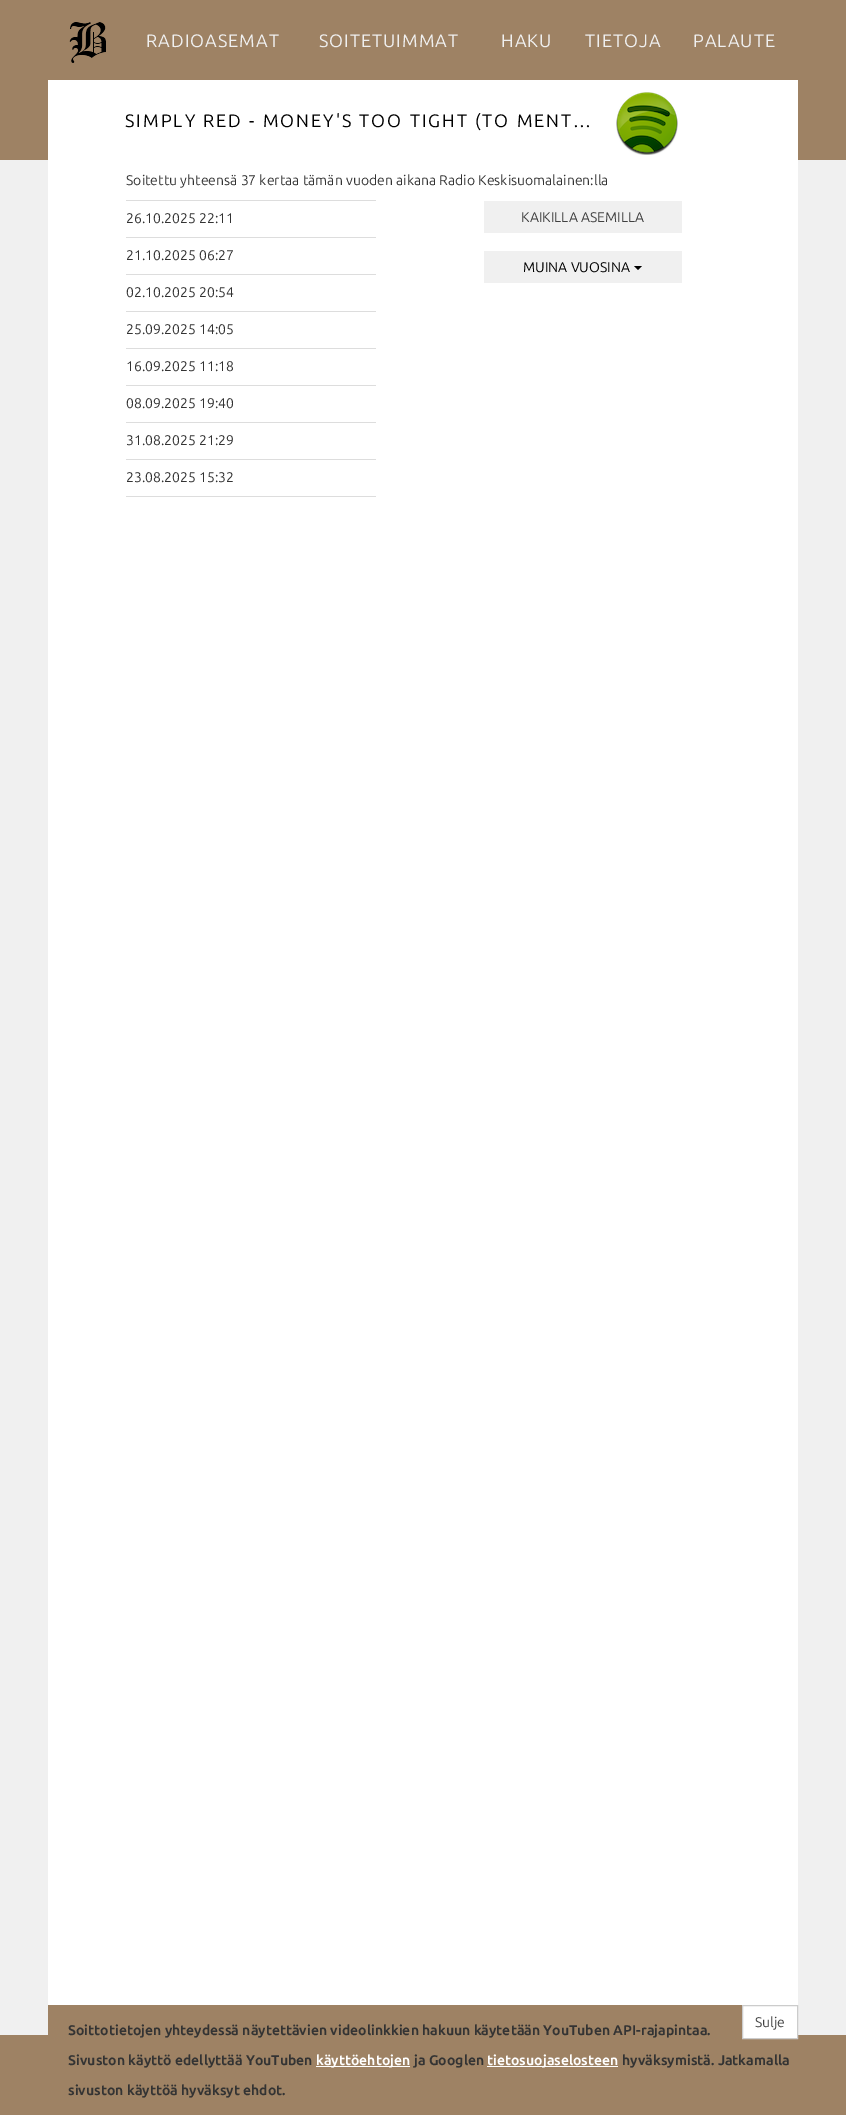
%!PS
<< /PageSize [846 2115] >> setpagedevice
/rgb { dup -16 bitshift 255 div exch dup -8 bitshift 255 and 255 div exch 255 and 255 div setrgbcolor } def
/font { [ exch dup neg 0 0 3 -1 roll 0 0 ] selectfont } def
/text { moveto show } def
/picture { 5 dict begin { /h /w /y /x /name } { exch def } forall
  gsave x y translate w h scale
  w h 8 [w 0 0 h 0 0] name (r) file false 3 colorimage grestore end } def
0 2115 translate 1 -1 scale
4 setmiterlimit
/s1 { /Ubuntu-Regular 14 font 16#333333 rgb } def
/s2 { /Ubuntu-Regular 14 font 16#404040 rgb } def
/s3 { /Ubuntu-Regular 14 font 16#000000 rgb } def
/s4 { /Ubuntu-Bold 14 font 16#333333 rgb } def
/s5 { /Ubuntu-Bold 14 font 16#FFFFFF rgb } def
16#F0F0F0 rgb
0 0 846 2115 rectfill
16#9E8264 rgb
0 0 846 160 rectfill
(pic1.raw) 69 22 37 41 picture
/Ubuntu-Regular 18 font
16#F0F0F0 rgb
146 47 moveto 1 0 (RADIOASEMAT) ashow
319 47 moveto 1 0 (SOITETUIMMAT) ashow
501 47 moveto 1 0 (HAKU) ashow
585 47 moveto 1 0 (TIETOJA) ashow
693 47 moveto 1 0 (PALAUTE) ashow
16#FFFFFF rgb
48 80 750 1925 rectfill
16#000000 rgb
125 127 moveto 2 0 (SIMPLY RED - MONEY'S TOO TIGHT \(TO MENT…) ashow
(pic2.raw) 616 92 62 63 picture
s1
(Soitettu yhteensä 37 kertaa tämän vuoden aikana Radio Keskisuomalainen:lla) 126 185 text
16#DDDDDD rgb
126 200 250 1 rectfill
s1
(26.10.2025 22:11) 126 223 text
16#DDDDDD rgb
126 237 250 1 rectfill
s1
(21.10.2025 06:27) 126 260 text
16#DDDDDD rgb
126 274 250 1 rectfill
s1
(02.10.2025 20:54) 126 297 text
16#DDDDDD rgb
126 311 250 1 rectfill
s1
(25.09.2025 14:05) 126 334 text
16#DDDDDD rgb
126 348 250 1 rectfill
s1
(16.09.2025 11:18) 126 371 text
16#DDDDDD rgb
126 385 250 1 rectfill
s1
(08.09.2025 19:40) 126 408 text
16#DDDDDD rgb
126 422 250 1 rectfill
s1
(31.08.2025 21:29) 126 445 text
16#DDDDDD rgb
126 459 250 1 rectfill
s1
(23.08.2025 15:32) 126 482 text
16#DDDDDD rgb
126 496 250 1 rectfill
16#F0F0F0 rgb
484 201 198 32 rectfill
s2
(KAIKILLA ASEMILLA) 521 222 text
16#F0F0F0 rgb
484 251 198 32 rectfill
s3
(MUINA VUOSINA) 523 272 text
634 266 moveto 642 266 lineto 638 270 lineto closepath fill
16#9E8264 rgb
48 2005 750 30 rectfill
0 2035 846 80 rectfill
16#FFFFFF rgb
742.5 2005.5 moveto 797.5 2005.5 lineto 797.5 2038.5 lineto 742.5 2038.5 lineto closepath gsave fill grestore
16#CCCCCC rgb
stroke
s2
(Sulje) 755 2027 text
s4
(Soittotietojen yhteydessä näytettävien videolinkkien hakuun käytetään YouTuben API-rajapintaa.) 68 2035 text
(Sivuston käyttö edellyttää YouTuben) 68 2065 text
16#FFFFFF rgb
316 2066 94 1 rectfill
(käyttöehtojen) 316 2065 text
s4
(ja Googlen) 414 2065 text
16#FFFFFF rgb
487 2066 131 1 rectfill
(tietosuojaselosteen) 487 2065 text
s4
(hyväksymistä. Jatkamalla) 622 2065 text
(sivuston käyttöä hyväksyt ehdot.) 68 2095 text
showpage
